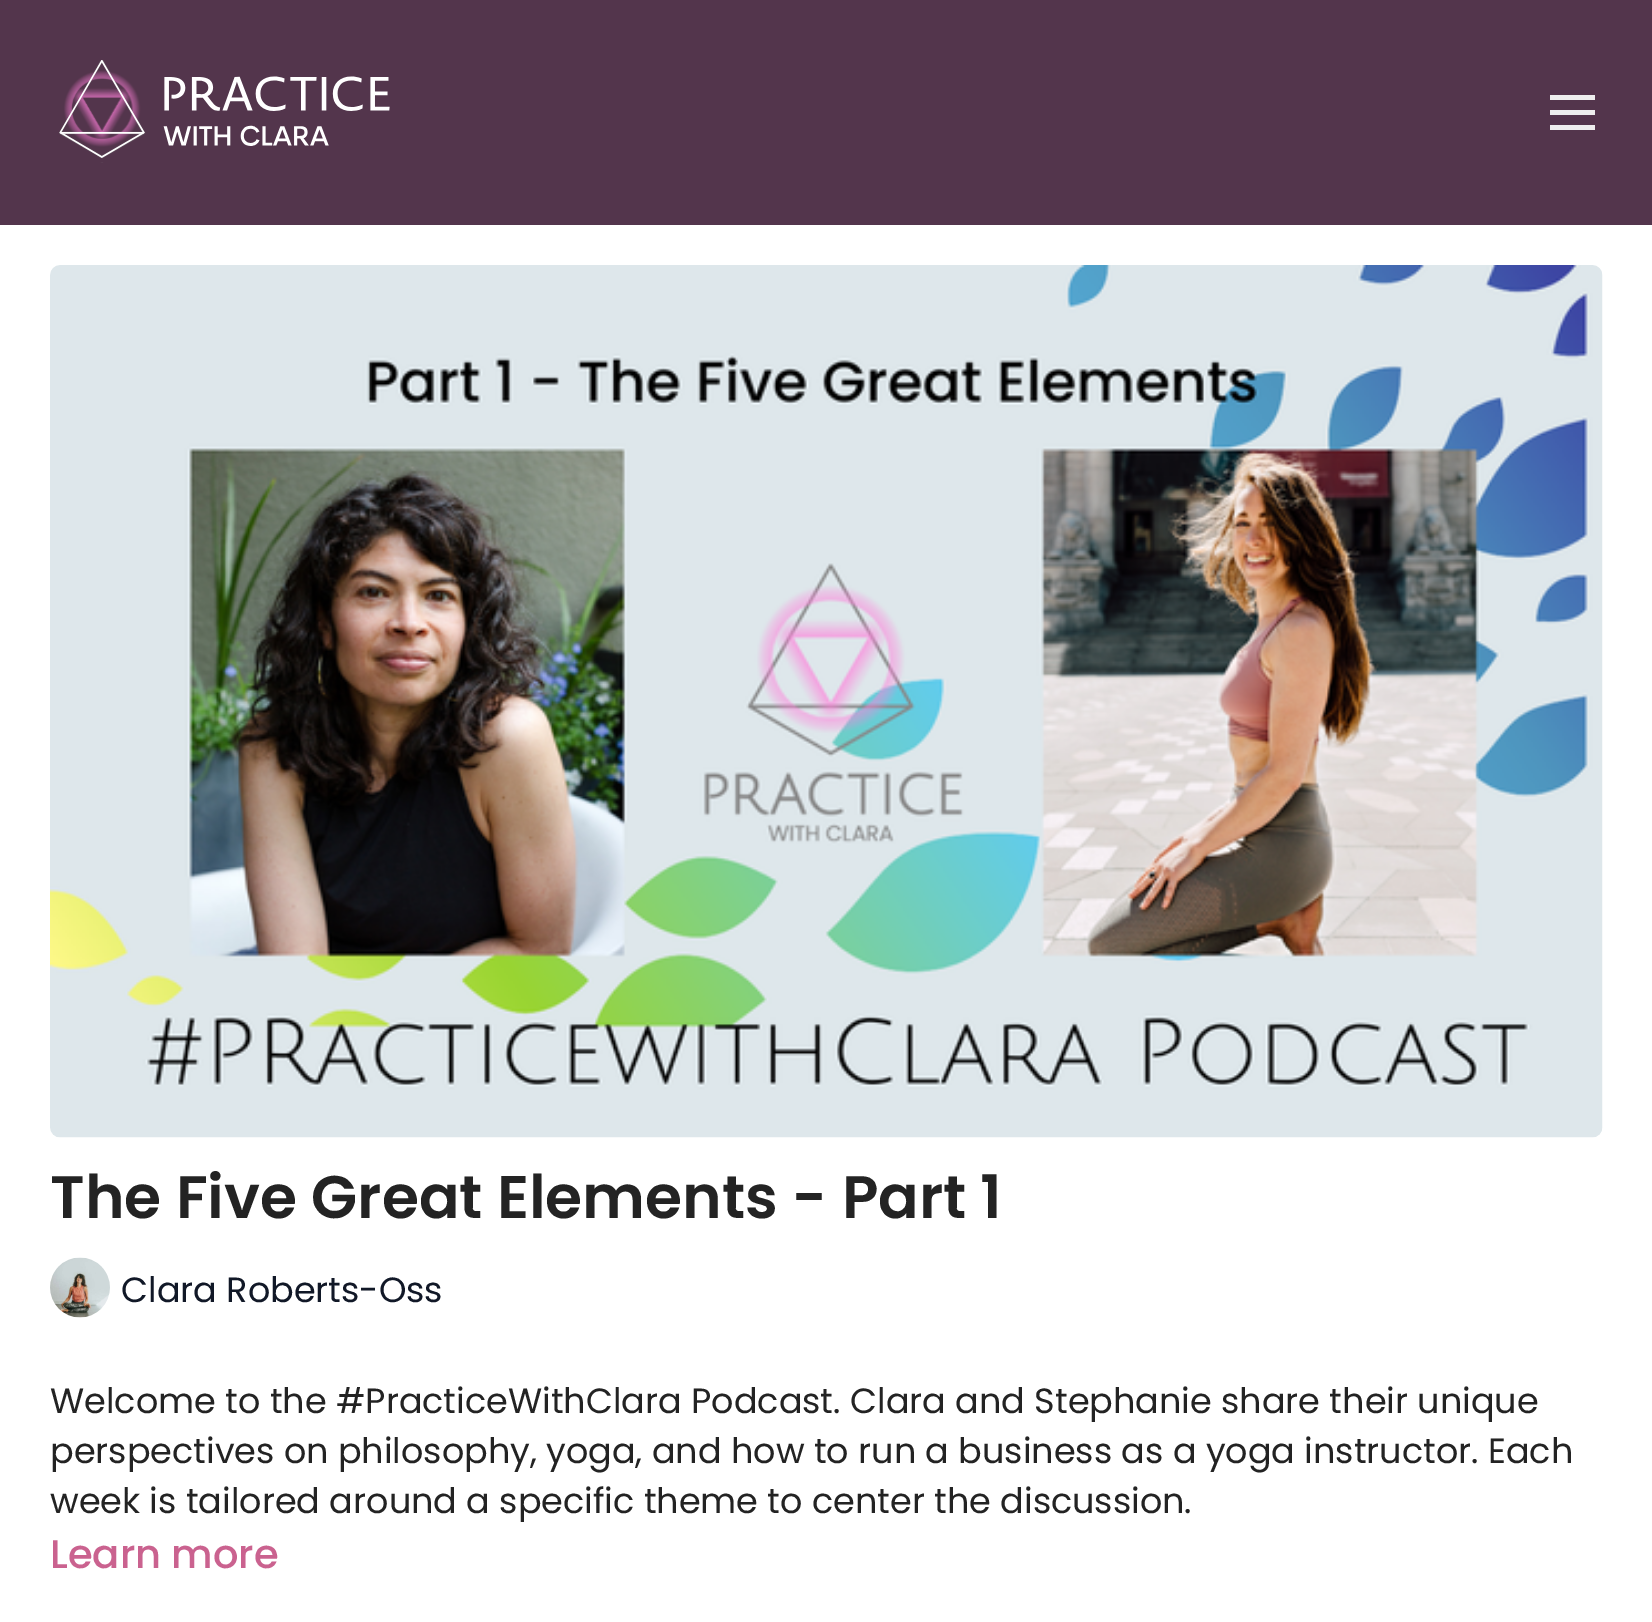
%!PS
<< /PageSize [1652 1622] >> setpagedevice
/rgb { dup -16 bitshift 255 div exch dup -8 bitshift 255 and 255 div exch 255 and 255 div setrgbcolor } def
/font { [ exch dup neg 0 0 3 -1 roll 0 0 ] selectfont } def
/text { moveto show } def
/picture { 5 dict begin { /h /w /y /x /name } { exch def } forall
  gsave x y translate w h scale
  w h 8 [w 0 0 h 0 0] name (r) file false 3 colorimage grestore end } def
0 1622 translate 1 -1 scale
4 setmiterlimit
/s1 { /Poppins-SemiBold 60 font 16#232323 rgb } def
/s2 { /Poppins-Regular 35 font 16#111827 rgb } def
/s3 { /Poppins-Regular 35 font 16#232323 rgb } def
/s4 { /Poppins-Medium 40 font 16#CA628F rgb } def
16#FFFFFF rgb
0 0 1652 1622 rectfill
16#53354C rgb
0 0 1652 225 rectfill
(pic1.raw) 59 60 331 103 picture
16#EEEEEE rgb
1595 100 moveto 1550 100 lineto 1550 95 lineto 1595 95 lineto closepath 1595 115 moveto 1550 115 lineto 1550 110 lineto 1595 110 lineto closepath 1550 130 moveto 1595 130 lineto 1595 125 lineto 1550 125 lineto closepath fill
(pic2.raw) 50 265 1553 873 picture
s1
(The Five Great Elements - Part 1) 50 1218 text
(pic3.raw) 50 1257 60 61 picture
s2
(Clara Roberts-Oss) 121 1302 text
s3
(Welcome to the #PracticeWithClara Podcast. Clara and Stephanie share their unique) 50 1413 text
(perspectives on philosophy, yoga, and how to run a business as a yoga instructor. Each) 50 1463 text
(week is tailored around a specific theme to center the discussion.) 50 1513 text
s4
(Learn more) 50 1568 text
showpage
